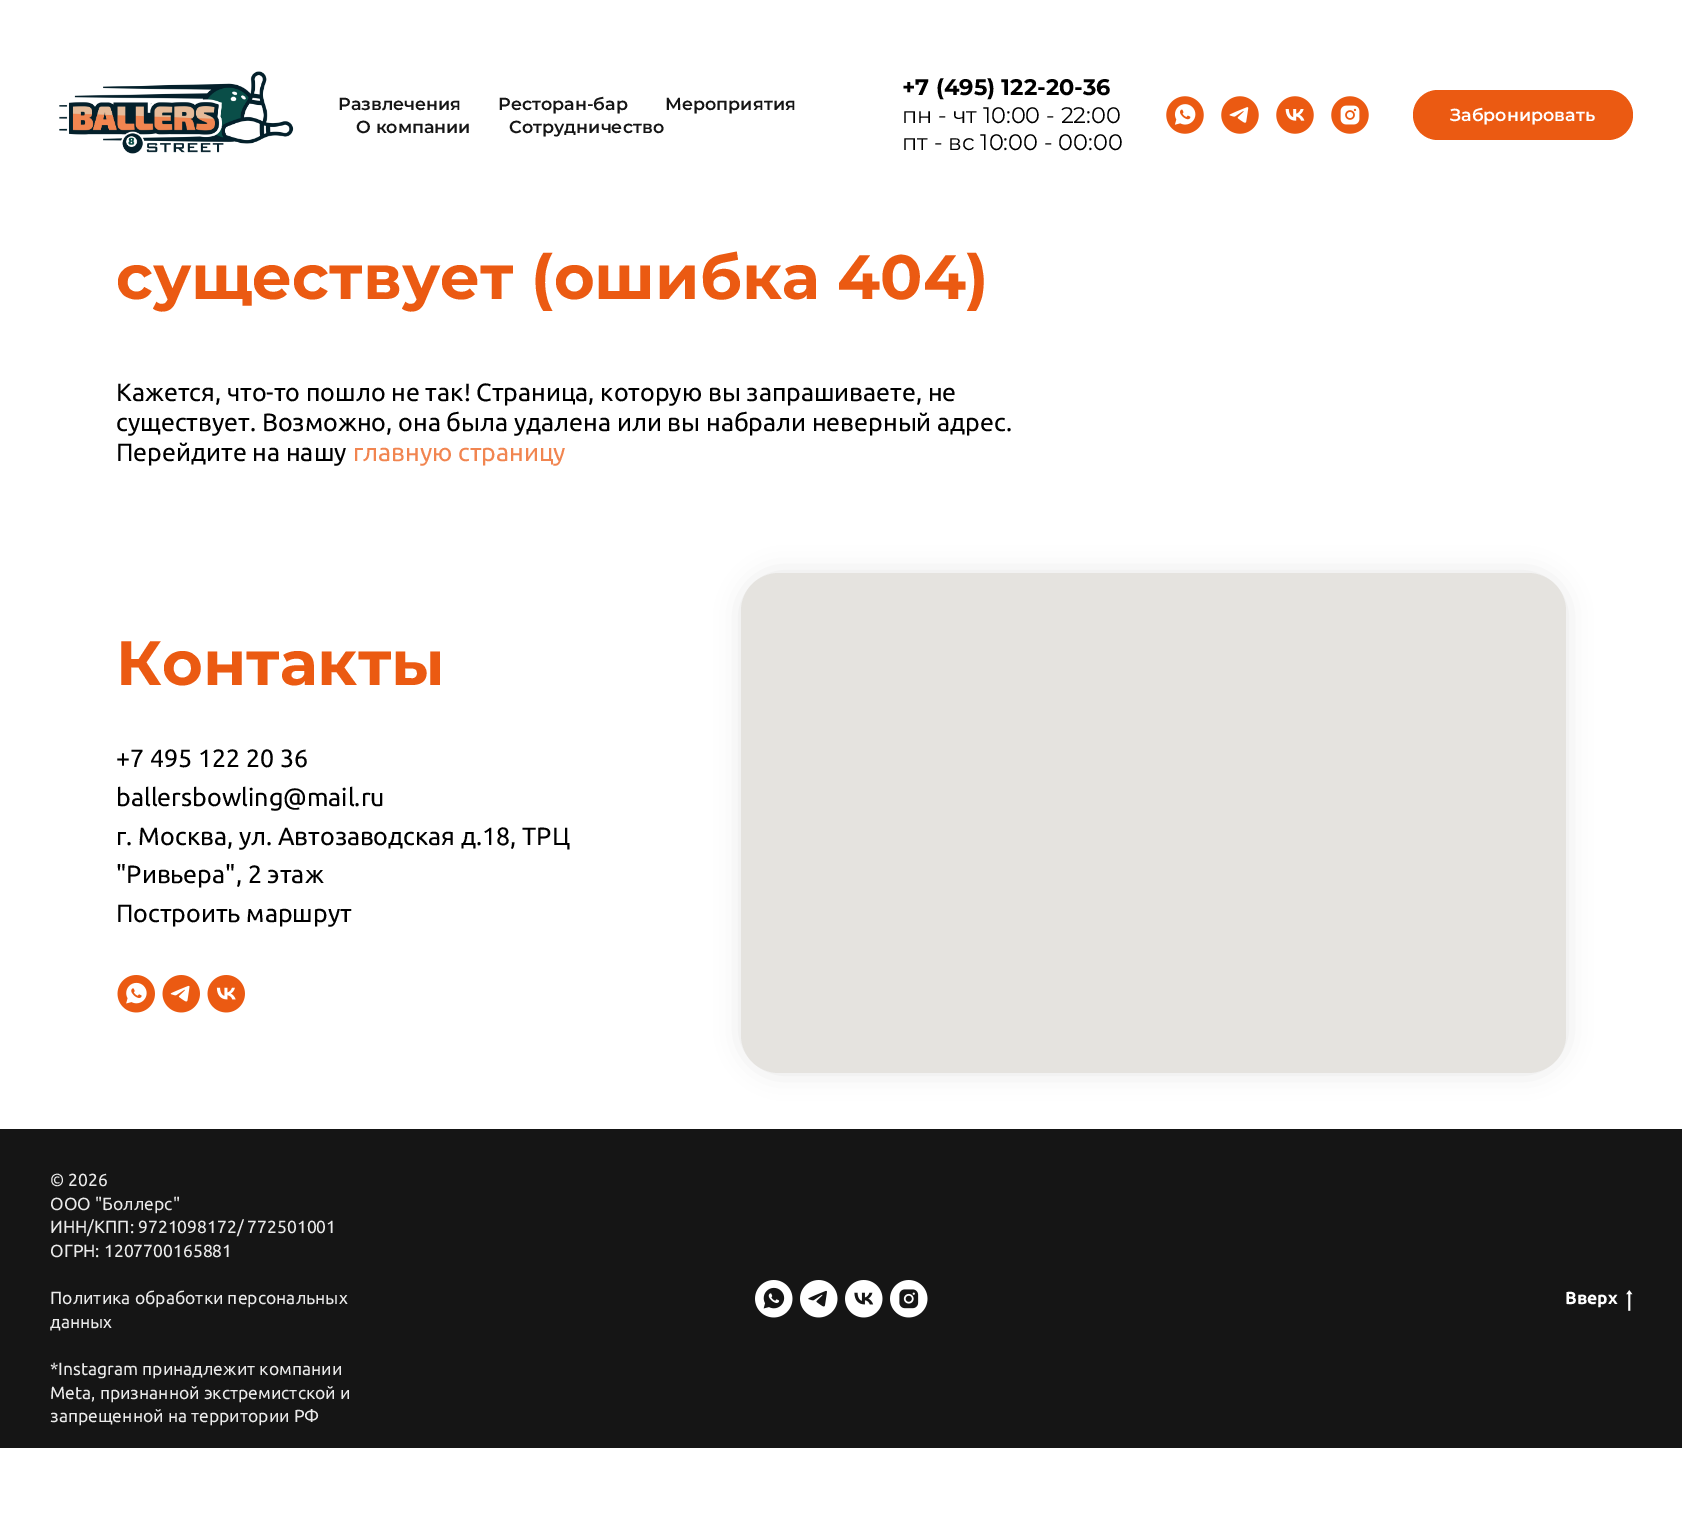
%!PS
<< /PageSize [1682 1540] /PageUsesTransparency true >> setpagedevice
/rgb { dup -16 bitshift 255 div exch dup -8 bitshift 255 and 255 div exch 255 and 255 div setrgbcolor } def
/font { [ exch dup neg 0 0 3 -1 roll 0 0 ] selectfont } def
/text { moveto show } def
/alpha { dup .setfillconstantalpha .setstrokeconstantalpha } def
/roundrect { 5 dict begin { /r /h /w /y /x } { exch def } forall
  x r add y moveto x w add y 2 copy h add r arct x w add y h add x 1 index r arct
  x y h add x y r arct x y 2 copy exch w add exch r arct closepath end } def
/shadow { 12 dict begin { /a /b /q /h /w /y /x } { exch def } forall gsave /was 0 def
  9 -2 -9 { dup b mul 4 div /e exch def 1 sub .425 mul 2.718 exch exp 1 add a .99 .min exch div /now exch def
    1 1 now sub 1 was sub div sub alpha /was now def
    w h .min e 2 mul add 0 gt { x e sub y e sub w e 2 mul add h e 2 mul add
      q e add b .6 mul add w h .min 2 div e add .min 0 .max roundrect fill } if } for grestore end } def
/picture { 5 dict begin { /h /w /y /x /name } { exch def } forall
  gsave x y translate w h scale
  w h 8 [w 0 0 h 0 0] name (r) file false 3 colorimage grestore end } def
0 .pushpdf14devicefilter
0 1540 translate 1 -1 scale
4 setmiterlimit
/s1 { /Montserrat-SemiBold 17.5 font 16#151515 rgb } def
/s2 { /Montserrat-Bold 22.5 font 16#000000 rgb } def
/s3 { /Montserrat-Regular 22.5 font 16#000000 rgb } def
/s4 { /Montserrat-SemiBold 17.5 font 16#FFFFFF rgb } def
/s5 { /Montserrat-Bold 62.5 font 16#EB5A12 rgb } def
/s6 { /Ubuntu-Regular 25 font 16#000000 rgb } def
/s7 { /Ubuntu-Regular 25 font 16#F18550 rgb } def
/s8 { /Ubuntu-Regular 17.5 font 16#EAEAEA rgb } def
/s9 { /Ubuntu-Bold 17.5 font 16#FFFFFF rgb } def
16#FFFFFF rgb
0 0 1682 1540 rectfill
(pic1.raw) 59 71 235 83 picture
s1
(Развлечения) 338 110 text
(Ресторан-бар) 498 110 text
(Мероприятия) 665 110 text
(О компании) 356 133 text
(Сотрудничество) 509 133 text
s2
(+7 \(495\) 122-20-36) 902 95 text
s3
(пн - чт 10:00 - 22:00) 902 123 text
(пт - вс 10:00 - 00:00) 902 150 text
(pic2.raw) 1166 96 38 38 picture
(pic3.raw) 1221 96 38 38 picture
(pic4.raw) 1276 96 38 38 picture
(pic5.raw) 1331 96 38 38 picture
16#EB5A12 rgb
1413 90 220 50 25 roundrect fill
s4
(Забронировать) 1450 121 text
s5
(существует \(ошибка 404\)) 116 299 text
s6
(Кажется, что-то пошло не так! Страница, которую вы запрашиваете, не) 116 401 text
(существует. Возможно, она была удалена или вы набрали неверный адрес.) 116 431 text
(Перейдите на нашу) 116 461 text
s7
(главную страницу) 353 461 text
s5
(Контакты) 116 685 text
s6
(+7 495 122 20 36) 116 767 text
(ballersbowling@mail.ru) 116 806 text
(г. Москва, ул. Автозаводская д.18, ТРЦ) 116 845 text
("Ривьера", 2 этаж) 116 883 text
(Построить маршрут) 116 922 text
(pic6.raw) 117 975 38 38 picture
(pic7.raw) 162 975 38 38 picture
(pic8.raw) 207 975 38 38 picture
741 573 825 500 38 12.5 0.1 shadow
16#E5E3DF rgb
741 573 825 500 38 roundrect fill
16#151515 rgb
0 1129 1682 319 rectfill
s8
(© 2026) 50 1186 text
(ООО "Боллерс") 50 1210 text
(ИНН/КПП: 9721098172/ 772501001) 50 1233 text
(ОГРН: 1207700165881) 50 1257 text
(Политика обработки персональных) 50 1304 text
(данных) 50 1328 text
(*Instagram принадлежит компании) 50 1375 text
(Meta, признанной экстремистской и) 50 1399 text
(запрещенной на территории РФ) 50 1422 text
(pic9.raw) 755 1280 38 38 picture
(pic10.raw) 800 1280 38 38 picture
(pic11.raw) 845 1280 38 38 picture
(pic12.raw) 890 1280 38 38 picture
s9
(Вверх) 1565 1304 text
(pic13.raw) 1626 1290 7 21 picture
.poppdf14devicefilter showpage
